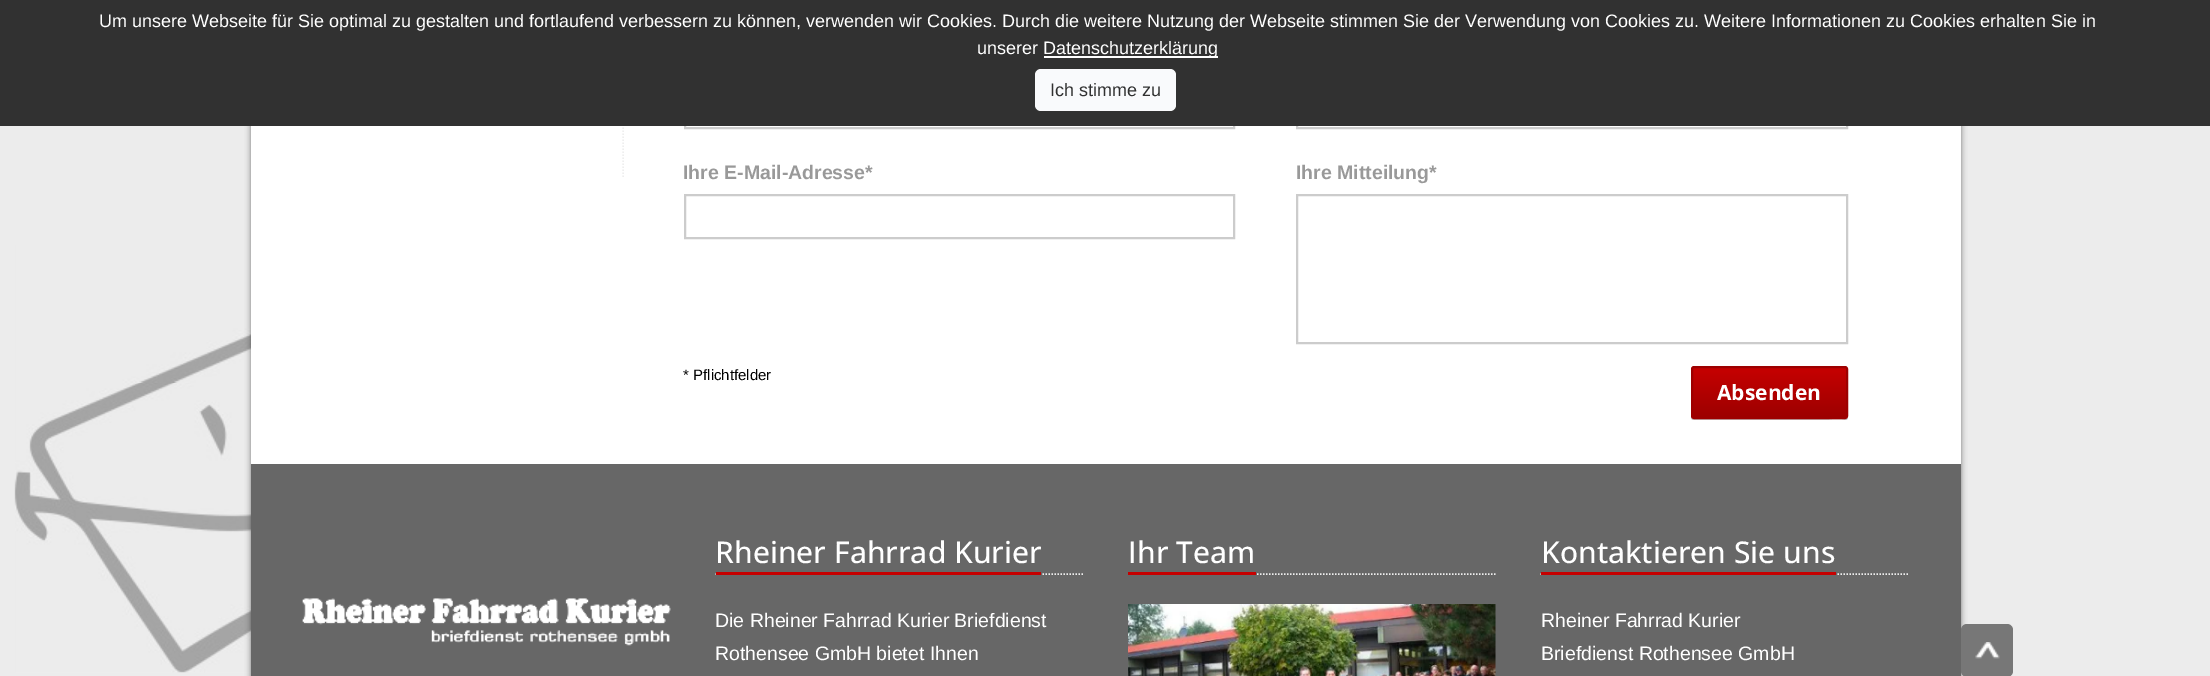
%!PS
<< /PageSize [2210 676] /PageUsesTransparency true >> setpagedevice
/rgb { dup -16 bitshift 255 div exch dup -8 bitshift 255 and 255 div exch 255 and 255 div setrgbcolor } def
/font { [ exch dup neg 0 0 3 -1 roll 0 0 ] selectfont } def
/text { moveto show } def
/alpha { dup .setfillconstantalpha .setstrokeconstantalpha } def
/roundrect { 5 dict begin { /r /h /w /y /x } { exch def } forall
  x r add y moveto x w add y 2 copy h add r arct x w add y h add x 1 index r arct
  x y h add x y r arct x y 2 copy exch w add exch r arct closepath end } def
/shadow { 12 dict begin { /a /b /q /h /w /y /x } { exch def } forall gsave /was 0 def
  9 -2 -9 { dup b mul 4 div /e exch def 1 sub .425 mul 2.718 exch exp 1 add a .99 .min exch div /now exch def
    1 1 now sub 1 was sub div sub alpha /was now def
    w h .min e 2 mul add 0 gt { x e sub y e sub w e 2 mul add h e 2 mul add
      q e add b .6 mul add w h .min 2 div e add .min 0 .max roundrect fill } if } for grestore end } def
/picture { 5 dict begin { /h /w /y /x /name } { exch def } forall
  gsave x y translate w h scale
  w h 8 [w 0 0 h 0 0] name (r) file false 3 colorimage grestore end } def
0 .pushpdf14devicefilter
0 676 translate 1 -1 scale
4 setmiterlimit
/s1 { /LiberationSans-Regular 18 font 16#FFFFFF rgb } def
/s2 { /LiberationSans-Regular 18 font 16#313131 rgb } def
/s3 { /LiberationSans-Bold 19.5 font 16#999999 rgb } def
/s4 { /LiberationSans-Regular 15 font 16#000000 rgb } def
/s5 { /OpenSans-Bold 21 font 16#FFFFFF rgb } def
/s6 { /OpenSans-Medium 30 font 16#FFFFFF rgb } def
/s7 { /LiberationSans-Regular 19.5 font 16#FFFFFF rgb } def
16#ECECEC rgb
0 0 2210 676 rectfill
(pic1.raw) 14 244 237 429 picture
16#000000 rgb
251 -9 1710 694 0 3 0.5 shadow
16#FFFFFF rgb
251 126 1710 338 rectfill
16#EEEEEE rgb
1.5 setlinewidth
[1.5 1.5] 0 setdash
623 -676.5 moveto 623 178.5 lineto stroke
16#CCCCCC rgb
2 setlinewidth
[] 0 setdash
685 85 549 43 rectstroke
1297 85 550 43 rectstroke
16#313131 rgb
0 0 2210 126 rectfill
s1
(Um unsere Webseite für Sie optimal zu gestalten und fortlaufend verbessern zu können, verwenden wir Cookies. Durch die weitere Nutzung der Webseite stimmen Sie der Verwendung von Cookies zu. Weitere Informationen zu Cookies erhalten Sie in) 99 27 text
(unserer) 977 54 text
1044 56 174 2 rectfill
(Datenschutzerklärung) 1043 54 text
16#F9FAFC rgb
1035 69 141 42 6 roundrect fill
s2
(Ich stimme zu) 1050 96 text
s3
(Ihre E-Mail-Adresse*) 683 179 text
16#CCCCCC rgb
685 195 549 43 rectstroke
s3
(Ihre Mitteilung*) 1296 179 text
16#CCCCCC rgb
1297 195 550 148 rectstroke
s4
(* Pflichtfelder) 683 380 text
16#BFBFBF rgb
1691 417 moveto 1691 419 1692 420 1694 420 curveto 1845 420 lineto 1847 420 1848 419 1848 417 curveto 1848 416 lineto 1848 423 1820 418 1820 418 curveto 1693 418 lineto closepath fill
gsave
1691 366 157 53 3 roundrect clip newpath
gsave 1691 368 moveto 1848 368 lineto 1848 417 lineto 1691 417 lineto closepath clip newpath
<< /ShadingType 2 /ColorSpace /DeviceRGB /Coords [1692 417 1692 368] /Extend [true true] /Function << /FunctionType 2 /Domain [0 1] /C0 [0.616 0 0] /C1 [0.776 0 0] /N 1 >> >> shfill grestore
grestore
16#9D0000 rgb
1692 367 155 51 2 roundrect stroke
s5
(Absenden) 1717 400 text
16#676767 rgb
251 464 1710 212 rectfill
(pic2.raw) 302 598 369 48 picture
16#EEEEEE rgb
1.5 setlinewidth
[1.5 1.5] 0 setdash
715.5 574 moveto 1083 574 lineto stroke
s6
(Rheiner Fahrrad Kurier) 715 563 text
16#C60000 rgb
716 572 325 3 rectfill
s7
(Die Rheiner Fahrrad Kurier Briefdienst) 715 627 text
(Rothensee GmbH bietet Ihnen) 715 660 text
16#EEEEEE rgb
1128 574 moveto 1495.5 574 lineto stroke
s6
(Ihr Team) 1128 563 text
16#C60000 rgb
1128 572 128 3 rectfill
(pic3.raw) 1128 604 368 72 picture
16#EEEEEE rgb
1540.5 574 moveto 1909.5 574 lineto stroke
s6
(Kontaktieren Sie uns) 1541 563 text
16#C60000 rgb
1541 572 295 3 rectfill
s7
(Rheiner Fahrrad Kurier) 1541 627 text
(Briefdienst Rothensee GmbH) 1541 660 text
0.99 alpha
16#767676 rgb
1961 624 52 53 6 roundrect fill
1 alpha
(pic4.raw) 1975 642 25 17 picture
.poppdf14devicefilter showpage
